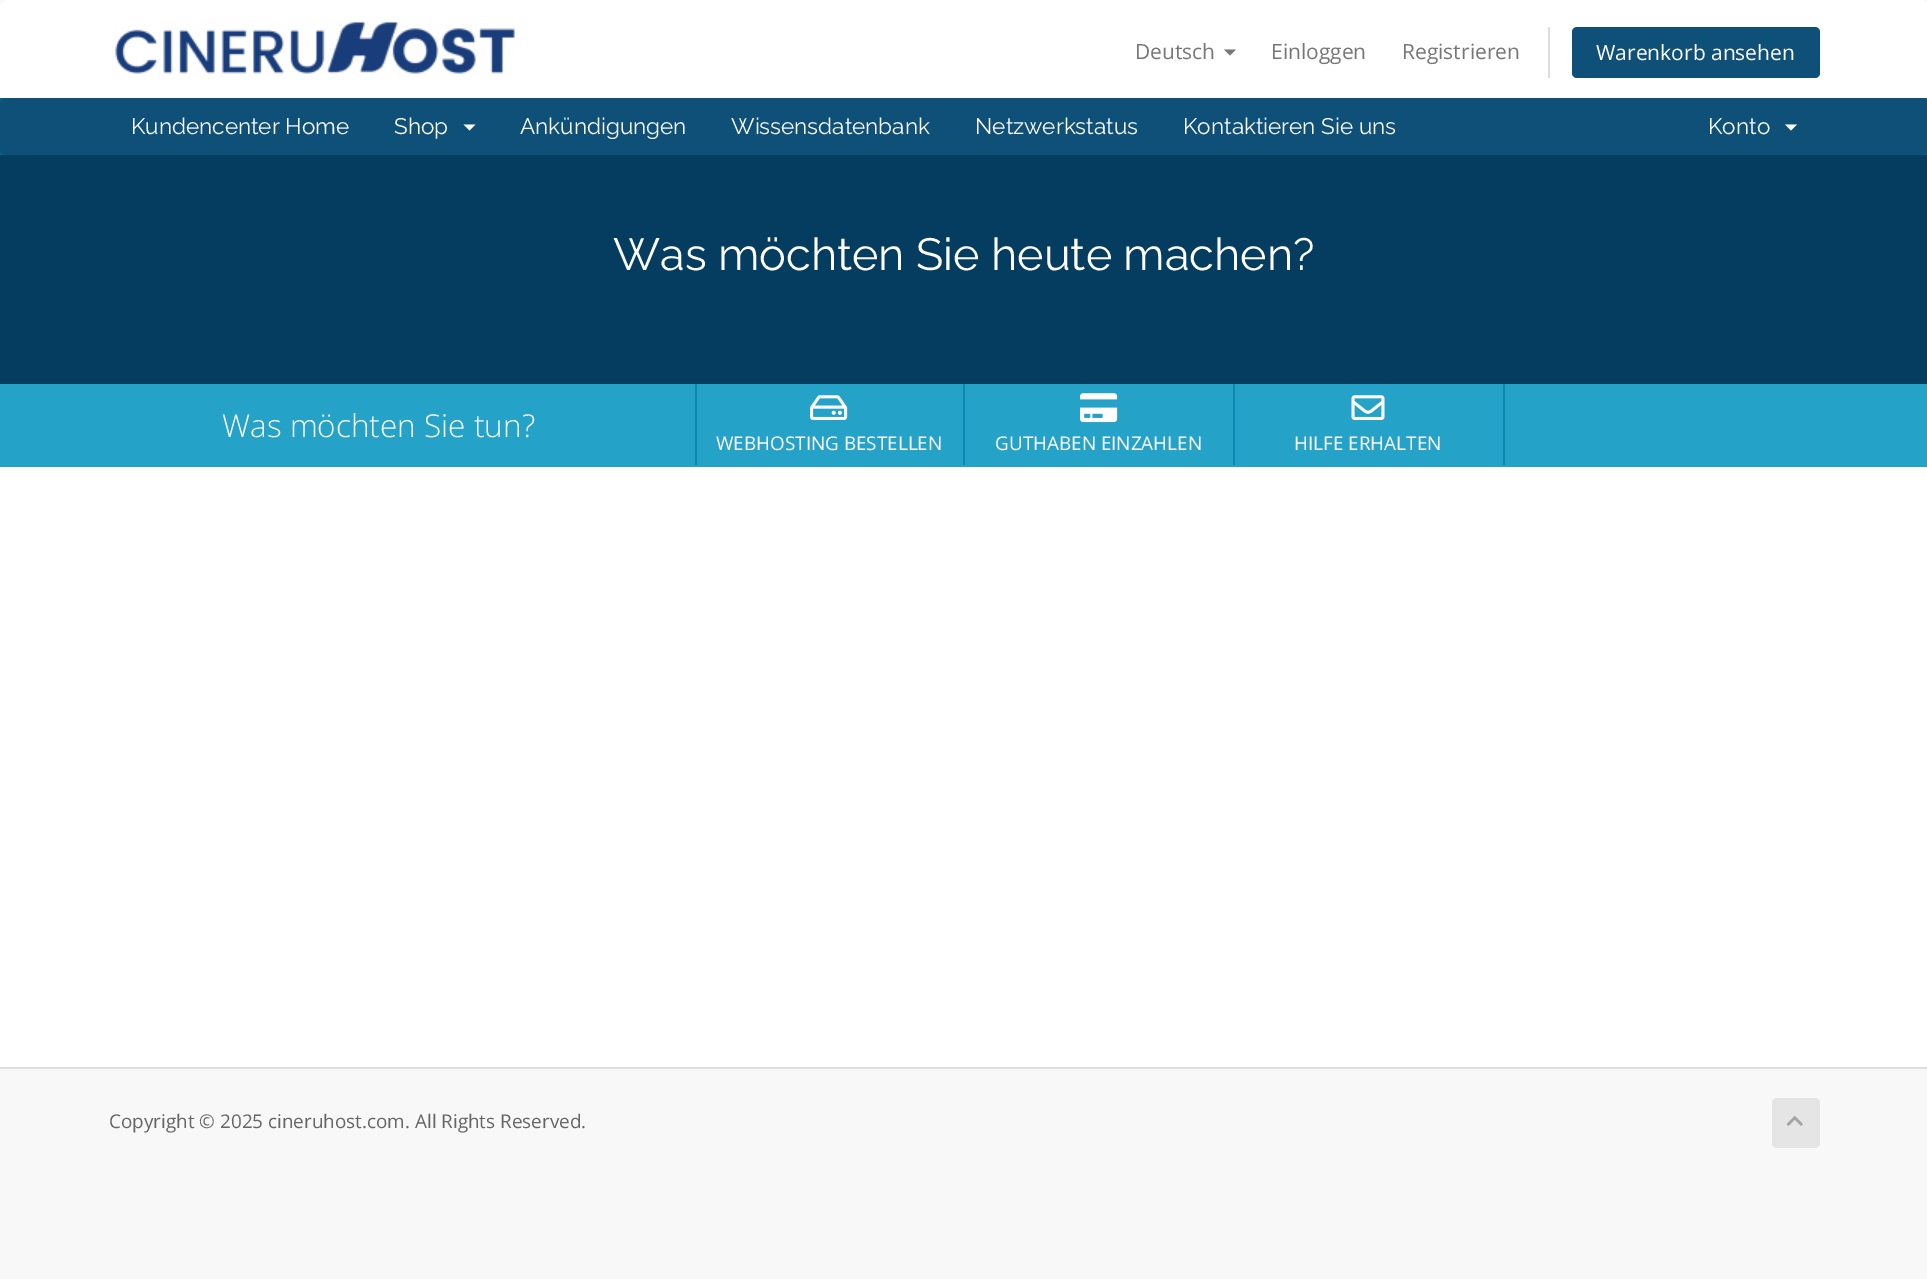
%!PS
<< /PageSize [1927 1279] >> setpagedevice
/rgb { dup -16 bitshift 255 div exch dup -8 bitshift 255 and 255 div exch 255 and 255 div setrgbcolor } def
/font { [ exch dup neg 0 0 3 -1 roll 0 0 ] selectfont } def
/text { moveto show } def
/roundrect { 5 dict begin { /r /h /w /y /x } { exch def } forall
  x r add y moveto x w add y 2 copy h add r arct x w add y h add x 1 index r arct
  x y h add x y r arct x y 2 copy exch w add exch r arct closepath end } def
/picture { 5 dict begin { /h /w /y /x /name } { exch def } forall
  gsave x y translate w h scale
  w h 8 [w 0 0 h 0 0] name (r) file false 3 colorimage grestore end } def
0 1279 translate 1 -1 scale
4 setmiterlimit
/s1 { /OpenSans-Regular 21 font 16#777777 rgb } def
/s2 { /OpenSans-Regular 21 font 16#FFFFFF rgb } def
/s3 { /Raleway-Regular 22.5 font 16#FFFFFF rgb } def
/s4 { /Raleway-Regular 45 font 16#FFFFFF rgb } def
/s5 { /OpenSans-Light 31.5 font 16#FFFFFF rgb } def
/s6 { /OpenSans-Regular 18.9 font 16#FFFFFF rgb } def
/s7 { /OpenSans-Regular 18.9 font 16#666666 rgb } def
16#F8F8F8 rgb
0 0 1927 1279 rectfill
16#FFFFFF rgb
8 0 moveto 1920 0 lineto 1924.5 0 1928 3.5 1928 8 curveto 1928 98 lineto 0 98 lineto 0 8 lineto 0 3.5 3.5 0 8 0 curveto closepath fill
(pic1.raw) 115 21 400 53 picture
s1
(Deutsch) 1135 59 text
1224 49.5 moveto 1236 49.5 lineto 1230 55.5 lineto closepath fill
(Einloggen) 1271 59 text
(Registrieren) 1402 59 text
16#DDDDDD rgb
1548 27 2 51 rectfill
16#0E5077 rgb
1572 27 248 51 5 roundrect fill
s2
(Warenkorb ansehen) 1596 60 text
16#006687 rgb
0 98 1927 57 rectfill
16#0E5077 rgb
0 98 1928 57 6 roundrect fill
s3
(Kundencenter Home) 131 134 text
(Shop) 394 134 text
463.5 124.5 moveto 475.5 124.5 lineto 469.5 130.5 lineto closepath fill
(Ankündigungen) 520 134 text
(Wissensdatenbank) 731 134 text
(Netzwerkstatus) 975 134 text
(Kontaktieren Sie uns) 1183 134 text
(Konto) 1708 134 text
1785 124.5 moveto 1797 124.5 lineto 1791 130.5 lineto closepath fill
16#043D5F rgb
0 155 1927 229 rectfill
s4
(Was möchten Sie heute machen?) 613 270 text
16#25A2C7 rgb
0 384 1927 83 rectfill
s5
(Was möchten Sie tun?) 222 437 text
16#0E88B0 rgb
963 384 2 81 rectfill
695 384 2 81 rectfill
(pic2.raw) 810 395 38 25 picture
s6
(WEBHOSTING BESTELLEN) 716 450 text
16#0E88B0 rgb
1233 384 2 81 rectfill
(pic3.raw) 1080 393 38 30 picture
s6
(GUTHABEN EINZAHLEN) 995 450 text
16#0E88B0 rgb
1503 384 2 81 rectfill
(pic4.raw) 1351 395 34 25 picture
s6
(HILFE ERHALTEN) 1294 450 text
0 467 1927 600 rectfill
16#DDDDDD rgb
0 1067 1927 2 rectfill
s7
(Copyright © 2025 cineruhost.com. All Rights Reserved.) 109 1128 text
16#E5E5E5 rgb
1772 1098 48 50 5 roundrect fill
(pic5.raw) 1786 1116 17 10 picture
showpage
